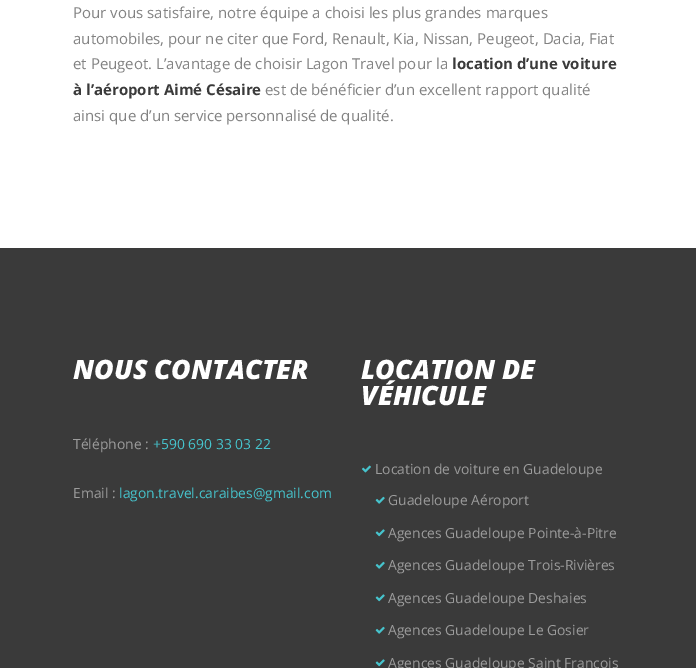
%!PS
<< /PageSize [696 668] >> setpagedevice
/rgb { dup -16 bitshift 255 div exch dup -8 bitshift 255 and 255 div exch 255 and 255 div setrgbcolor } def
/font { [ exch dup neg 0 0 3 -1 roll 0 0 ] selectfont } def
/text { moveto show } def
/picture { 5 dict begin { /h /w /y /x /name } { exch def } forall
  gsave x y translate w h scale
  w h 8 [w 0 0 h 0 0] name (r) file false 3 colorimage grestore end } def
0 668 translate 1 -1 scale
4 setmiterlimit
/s1 { /OpenSans-Regular 15 font 16#828282 rgb } def
/s2 { /OpenSans-Bold 15 font 16#3A3A3A rgb } def
/s3 { /OpenSans-ExtraBoldItalic 26.75 font 16#FFFFFF rgb } def
/s4 { /OpenSans-Regular 13.9 font 16#9C9C9C rgb } def
/s5 { /OpenSans-Regular 13.9 font 16#46C4CD rgb } def
16#FFFFFF rgb
0 0 696 668 rectfill
s1
(Pour vous satisfaire, notre équipe a choisi les plus grandes marques) 73 18 text
(automobiles, pour ne citer que Ford, Renault, Kia, Nissan, Peugeot, Dacia, Fiat) 73 44 text
(et Peugeot. L’avantage de choisir Lagon Travel pour la) 73 69 text
s2
(location d’une voiture) 452 69 text
(à l’aéroport Aimé Césaire) 73 95 text
s1
(est de bénéficier d’un excellent rapport qualité) 265 95 text
(ainsi que d’un service personnalisé de qualité.) 73 121 text
16#3A3A3A rgb
0 248 696 420 rectfill
s3
(NOUS CONTACTER) 73 379 text
s4
(Téléphone :) 73 449 text
s5
(+590 690 33 03 22) 153 449 text
s4
(Email :) 73 498 text
s5
(lagon.travel.caraibes@gmail.com) 119 498 text
s3
(LOCATION DE) 361 379 text
(VÉHICULE) 361 405 text
(pic1.raw) 362 465 9 8 picture
s4
(Location de voiture en Guadeloupe) 375 474 text
(pic2.raw) 375 496 10 8 picture
(Guadeloupe Aéroport) 388 505 text
(pic3.raw) 375 529 10 8 picture
(Agences Guadeloupe Pointe-à-Pitre) 388 538 text
(pic2.raw) 375 561 10 8 picture
(Agences Guadeloupe Trois-Rivières) 388 570 text
(pic3.raw) 375 594 10 8 picture
(Agences Guadeloupe Deshaies) 388 603 text
(pic2.raw) 375 626 10 8 picture
(Agences Guadeloupe Le Gosier) 388 635 text
(pic3.raw) 375 659 10 8 picture
(Agences Guadeloupe Saint François) 388 668 text
showpage
